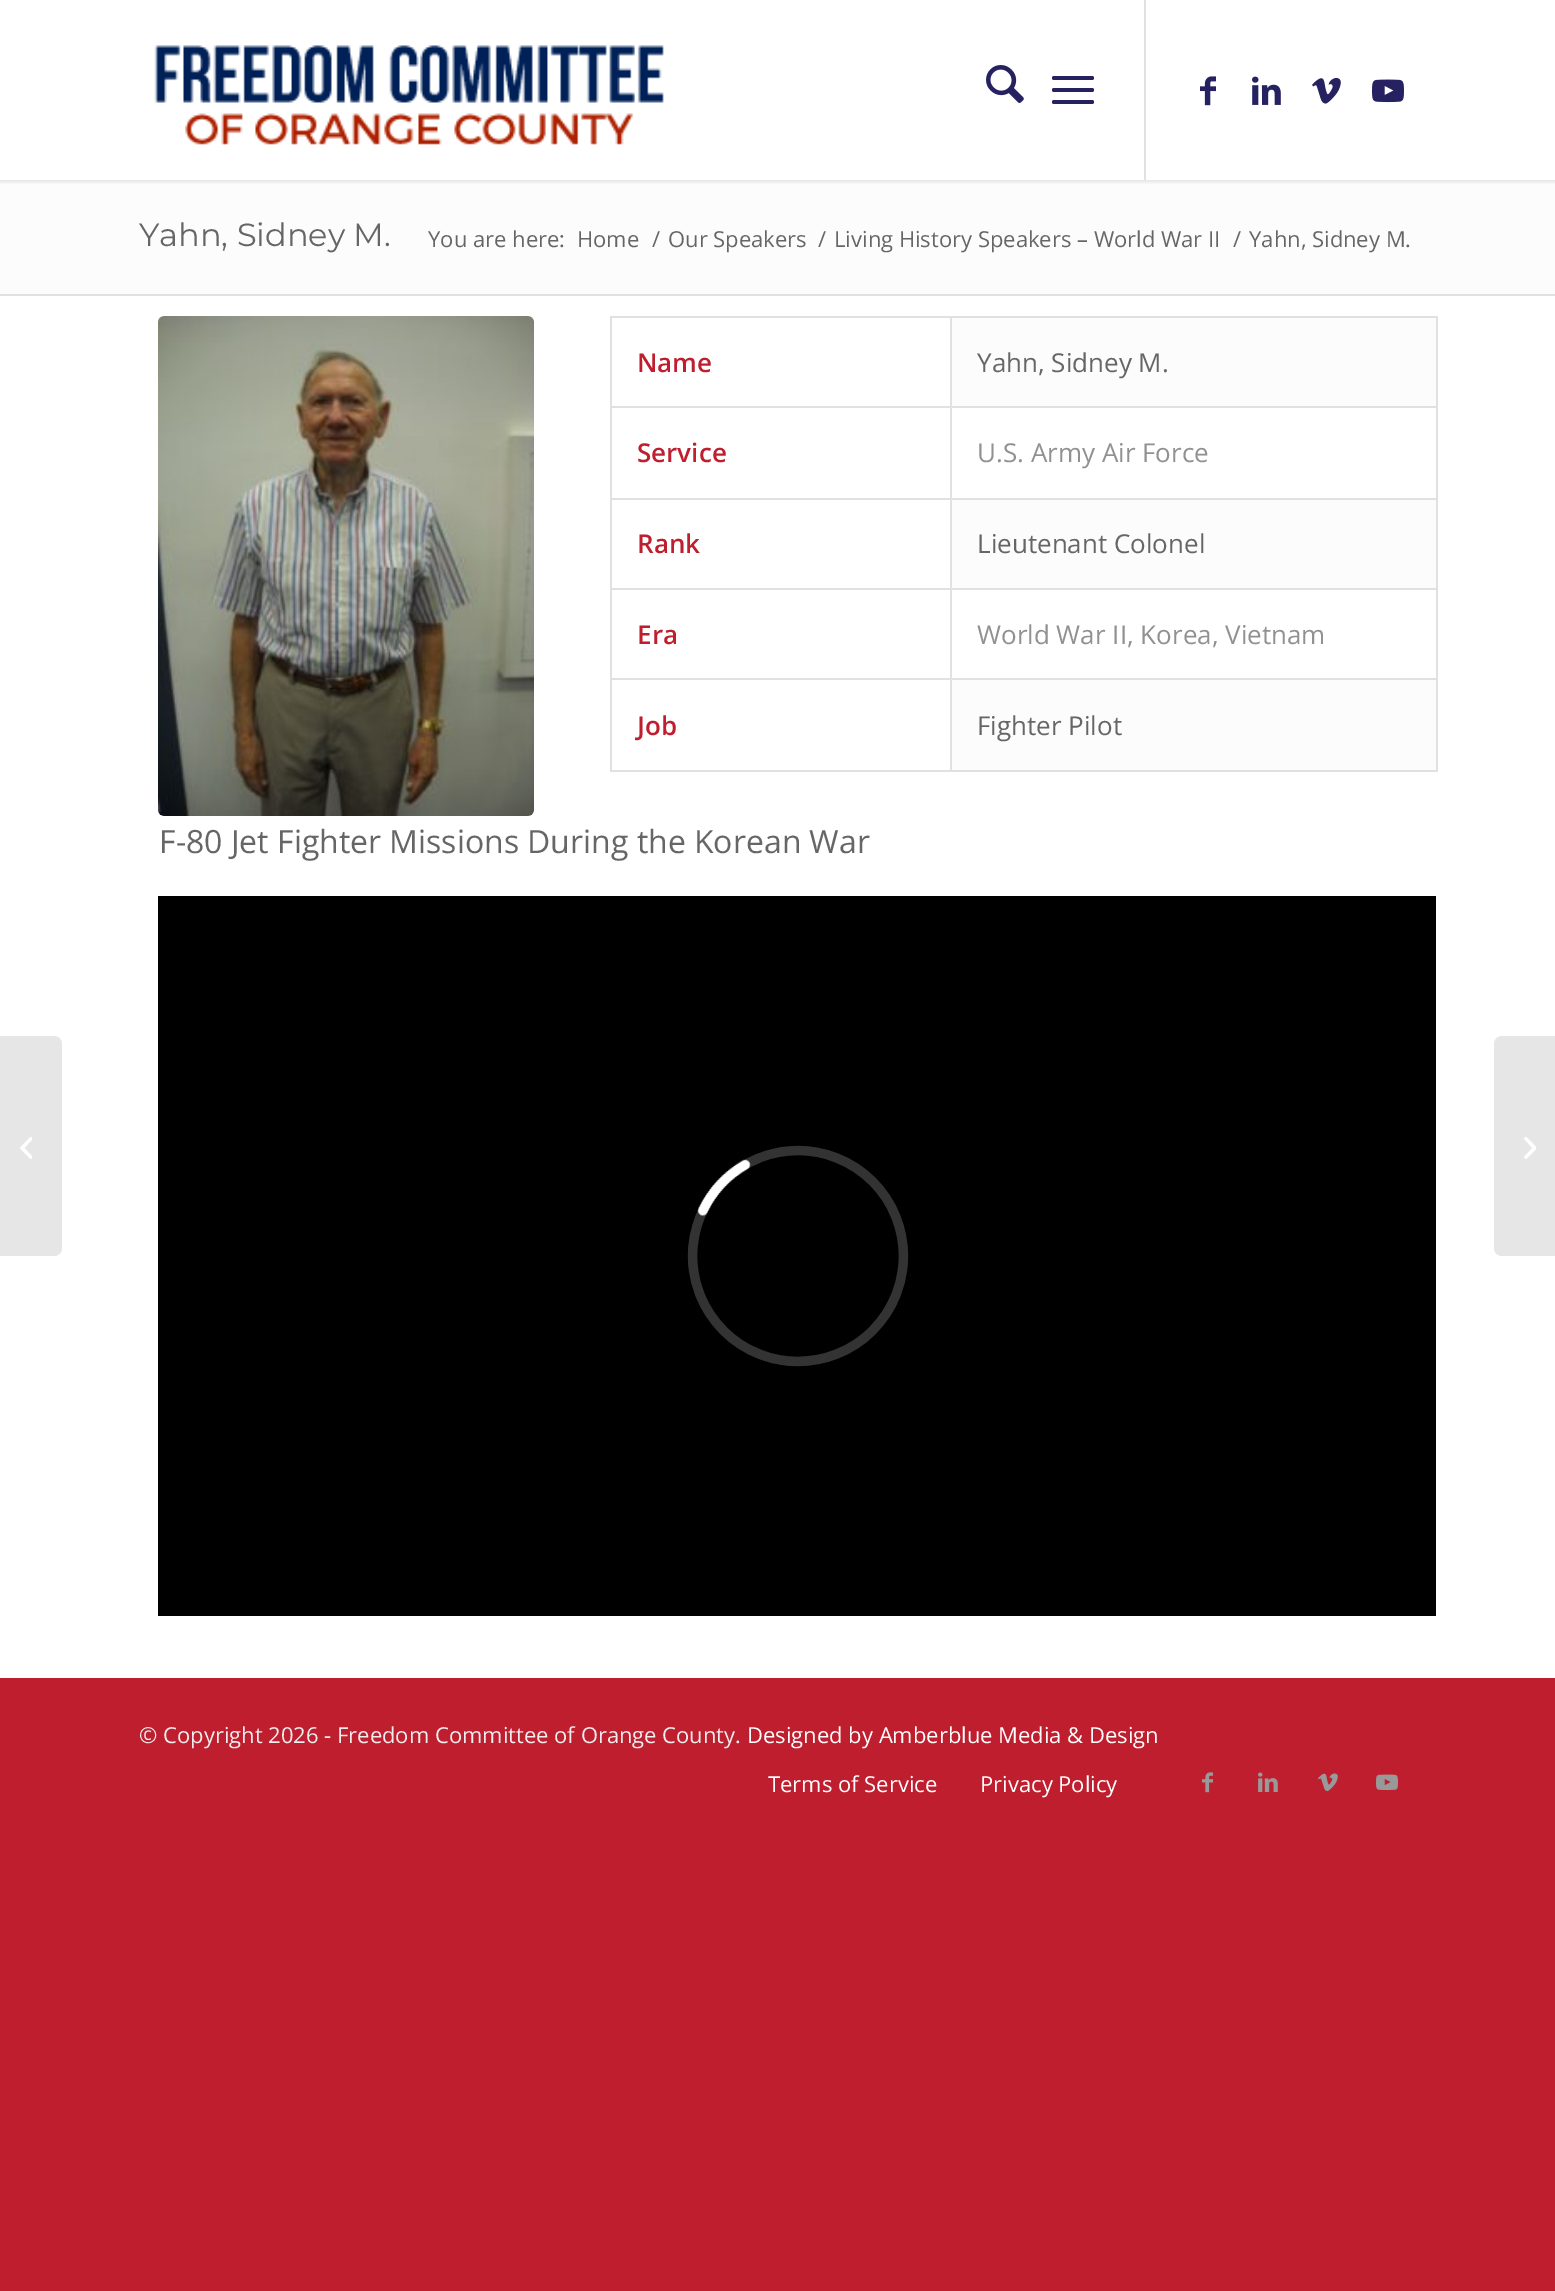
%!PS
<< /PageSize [1555 2291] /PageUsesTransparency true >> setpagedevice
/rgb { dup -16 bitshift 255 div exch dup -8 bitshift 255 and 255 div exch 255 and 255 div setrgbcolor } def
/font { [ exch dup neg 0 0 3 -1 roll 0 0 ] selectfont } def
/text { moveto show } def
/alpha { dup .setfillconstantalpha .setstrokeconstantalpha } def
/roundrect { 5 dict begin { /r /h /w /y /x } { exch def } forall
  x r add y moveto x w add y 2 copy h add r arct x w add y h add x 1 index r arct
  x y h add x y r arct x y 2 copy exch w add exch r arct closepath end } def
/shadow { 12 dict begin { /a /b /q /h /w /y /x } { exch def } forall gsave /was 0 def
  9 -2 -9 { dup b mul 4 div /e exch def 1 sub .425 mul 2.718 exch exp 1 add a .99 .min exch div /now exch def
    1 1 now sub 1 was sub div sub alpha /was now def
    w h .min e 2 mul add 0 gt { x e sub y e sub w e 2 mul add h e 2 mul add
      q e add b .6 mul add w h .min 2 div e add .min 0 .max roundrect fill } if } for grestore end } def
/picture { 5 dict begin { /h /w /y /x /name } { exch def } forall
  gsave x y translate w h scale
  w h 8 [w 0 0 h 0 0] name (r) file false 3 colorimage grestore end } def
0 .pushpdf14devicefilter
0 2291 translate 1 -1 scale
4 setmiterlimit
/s1 { /Montserrat-Thin 32 font 16#666666 rgb } def
/s2 { /OpenSans-Regular 22 font 16#666666 rgb } def
/s3 { /OpenSans-SemiBold 26 font 16#BE1E2E rgb } def
/s4 { /OpenSans-Regular 26 font 16#666666 rgb } def
/s5 { /OpenSans-Regular 26 font 16#919191 rgb } def
/s6 { /OpenSans-Regular 32 font 16#666666 rgb } def
/s7 { /OpenSans-Regular 22 font 16#EEEEEE rgb } def
/s8 { /OpenSans-Regular 22 font 16#FFFFFF rgb } def
16#BE1E2E rgb
0 0 1555 2291 rectfill
16#FFFFFF rgb
0 0 1555 1678 rectfill
16#FCFCFC rgb
0 180 1555 114 rectfill
gsave
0 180 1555 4 rectclip
16#000000 rgb
-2 -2 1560 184 0 2 0.1 shadow
grestore
(pic1.raw) 154 45 510 100 picture
16#E1E1E1 rgb
1144 0 2 180 rectfill
(pic2.raw) 986 65 38 38 picture
16#262261 rgb
1052 88 42 4 2 roundrect fill
1052 76 42 4 2 roundrect fill
1052 100 42 4 2 roundrect fill
(pic3.raw) 1200 76 16 30 picture
(pic4.raw) 1252 76 29 29 picture
(pic5.raw) 1312 77 29 27 picture
(pic6.raw) 1372 79 32 24 picture
16#E6E6E6 rgb
0 1036 moveto 54 1036 lineto 58.5 1036 62 1039.5 62 1044 curveto 62 1248 lineto 62 1252.5 58.5 1256 54 1256 curveto 0 1256 lineto closepath fill
(pic7.raw) 20 1137 12 22 picture
s1
(Yahn, Sidney M.) 139 246 text
s2
(You are here:) 428 247 text
(Home) 577 247 text
(/) 652 247 text
(Our Speakers) 668 247 text
(/) 818 247 text
(Living History Speakers – World War II) 834 247 text
(/) 1233 247 text
(Yahn, Sidney M.) 1249 247 text
16#E1E1E1 rgb
0 294 1555 2 rectfill
(pic8.raw) 158 316 376 500 picture
16#FCFCFC rgb
952 318 484 452 rectfill
16#E1E1E1 rgb
610 316 828 2 rectfill
1436 406 2 366 rectfill
1436 316 2 92 rectfill
950 770 488 2 rectfill
950 678 2 94 rectfill
950 678 488 2 rectfill
950 588 2 92 rectfill
950 588 488 2 rectfill
950 498 2 92 rectfill
950 498 488 2 rectfill
950 406 2 94 rectfill
950 406 488 2 rectfill
950 316 2 92 rectfill
610 770 342 2 rectfill
610 678 2 94 rectfill
610 678 342 2 rectfill
610 588 2 92 rectfill
610 588 342 2 rectfill
610 498 2 92 rectfill
610 498 342 2 rectfill
610 406 2 94 rectfill
610 406 342 2 rectfill
610 316 2 92 rectfill
s3
(Name) 637 372 text
s4
(Yahn, Sidney M.) 977 372 text
16#FFFFFF rgb
952 408 484 90 rectfill
s3
(Service) 637 462 text
s5
(U.S. Army Air Force) 977 462 text
s3
(Rank) 637 553 text
s4
(Lieutenant Colonel) 977 553 text
16#FFFFFF rgb
952 590 484 88 rectfill
s3
(Era) 637 644 text
s5
(World War II, Korea, Vietnam) 977 644 text
s3
(Job) 637 735 text
s4
(Fighter Pilot) 977 735 text
s6
(F-80 Jet Fighter Missions During the Korean War) 159 853 text
(pic9.raw) 158 896 1278 720 picture
s7
(© Copyright 2026 - Freedom Committee of Orange County.) 139 1743 text
s8
(Designed by Amberblue Media & Design) 747 1743 text
(Terms of Service) 768 1792 text
(Privacy Policy) 980 1792 text
(pic10.raw) 1202 1772 11 21 picture
(pic11.raw) 1258 1772 20 20 picture
(pic12.raw) 1318 1773 20 19 picture
(pic13.raw) 1376 1774 22 16 picture
16#E6E6E6 rgb
1502 1036 moveto 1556 1036 lineto 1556 1256 lineto 1502 1256 lineto 1497.5 1256 1494 1252.5 1494 1248 curveto 1494 1044 lineto 1494 1039.5 1497.5 1036 1502 1036 curveto closepath fill
(pic14.raw) 1524 1137 12 22 picture
.poppdf14devicefilter showpage
